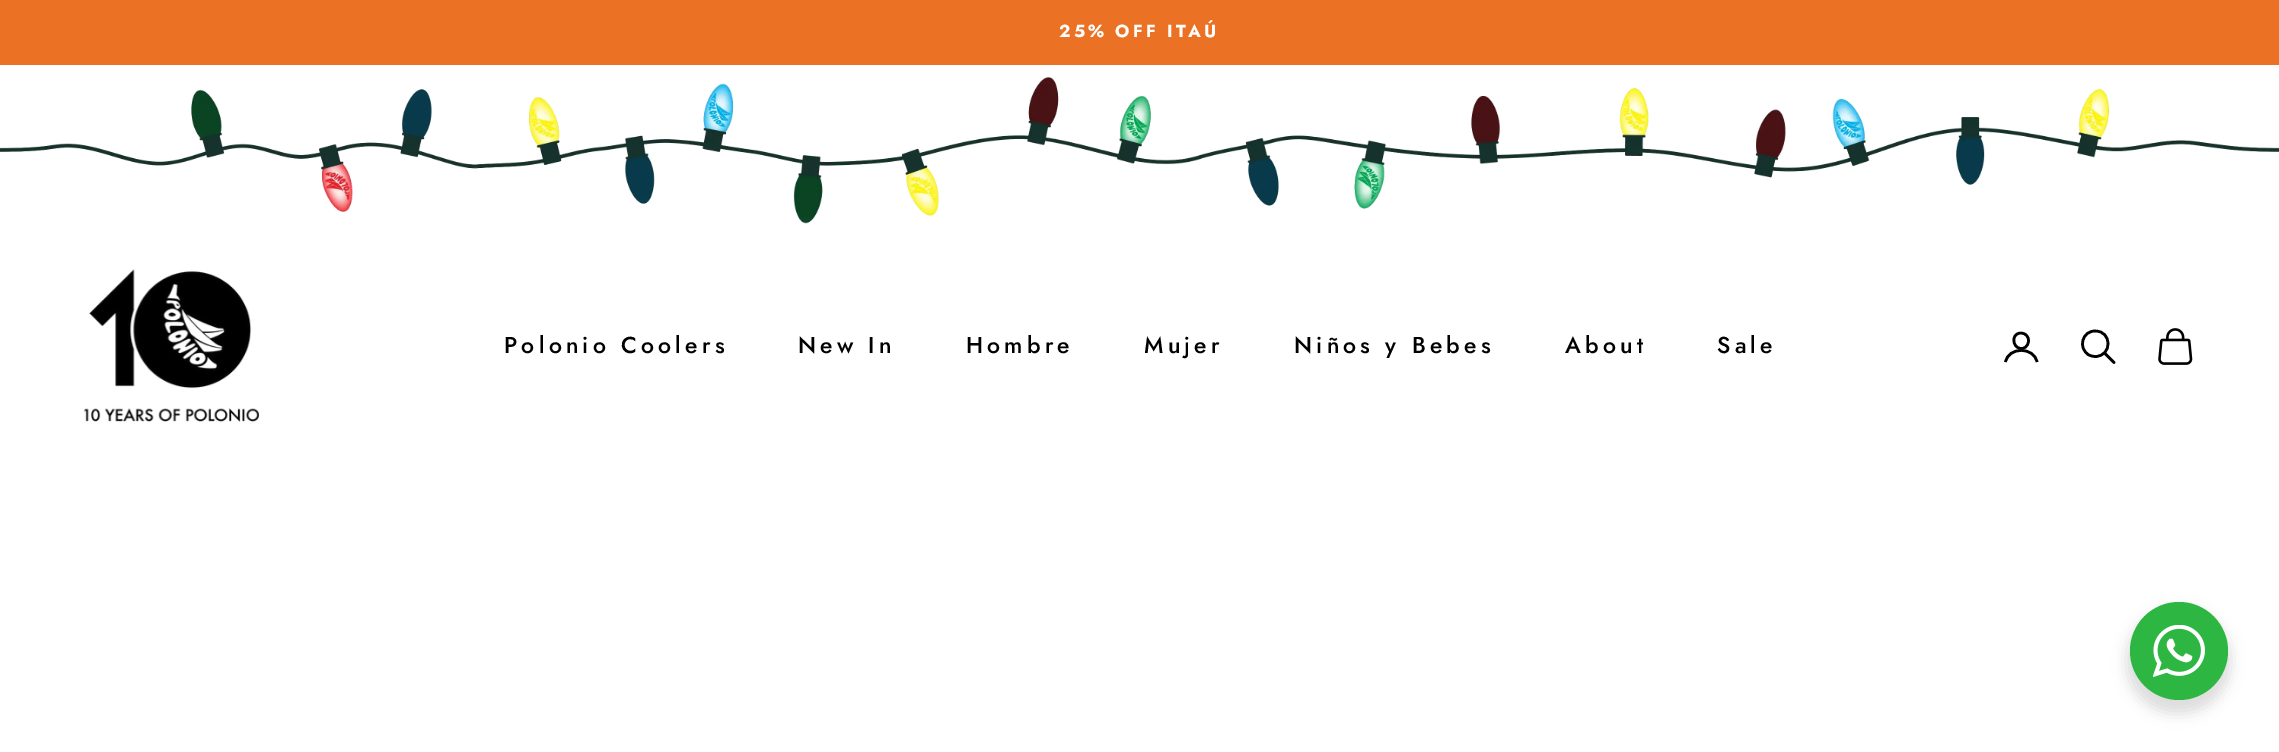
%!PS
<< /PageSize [2279 752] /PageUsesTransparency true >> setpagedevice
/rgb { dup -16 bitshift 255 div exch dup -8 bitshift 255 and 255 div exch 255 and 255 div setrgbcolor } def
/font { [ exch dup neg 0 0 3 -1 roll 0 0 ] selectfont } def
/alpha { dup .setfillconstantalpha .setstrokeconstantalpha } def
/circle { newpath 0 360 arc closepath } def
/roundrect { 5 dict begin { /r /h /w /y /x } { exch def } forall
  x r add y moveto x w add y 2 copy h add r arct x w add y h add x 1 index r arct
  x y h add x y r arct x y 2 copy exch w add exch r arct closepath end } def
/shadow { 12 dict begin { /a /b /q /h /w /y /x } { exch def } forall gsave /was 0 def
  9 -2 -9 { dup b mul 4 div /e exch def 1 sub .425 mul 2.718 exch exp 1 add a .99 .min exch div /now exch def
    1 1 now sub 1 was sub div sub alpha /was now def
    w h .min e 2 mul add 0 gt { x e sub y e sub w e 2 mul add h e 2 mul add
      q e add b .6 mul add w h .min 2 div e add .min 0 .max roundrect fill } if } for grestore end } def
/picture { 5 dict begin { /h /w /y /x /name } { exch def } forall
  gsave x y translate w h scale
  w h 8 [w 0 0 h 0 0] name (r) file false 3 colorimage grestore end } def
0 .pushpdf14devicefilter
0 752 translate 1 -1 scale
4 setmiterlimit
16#FFFFFF rgb
0 0 2279 752 rectfill
16#EB7224 rgb
0 0 2279 65 rectfill
/Jost-Bold 17.5 font
16#FFFFFF rgb
1059 37 moveto 3.1 0 (25% OFF ITAÚ) ashow
(pic1.raw) 0 77 2279 147 picture
(pic2.raw) 84 269 175 153 picture
/Jost-Medium 23 font
16#000000 rgb
504 353 moveto 4.2 0 (Polonio Coolers) ashow
798 353 moveto 4.2 0 (New In) ashow
966 353 moveto 4.2 0 (Hombre) ashow
1144 353 moveto 4.2 0 (Mujer) ashow
1294 353 moveto 4.2 0 (Niños y Bebes) ashow
1565 353 moveto 4.2 0 (About) ashow
1717 353 moveto 4.2 0 (Sale) ashow
2.6 setlinewidth
1 setlinecap
1 setlinejoin
2028.5 341 moveto 2027.5 352.5 2012.5 350 2014 339 curveto 2015 330 2029 331.5 2028.5 341 curveto closepath stroke
0 setlinecap
0 setlinejoin
2005.5 362 moveto 2008.5 346.5 2034 346.5 2037 362 curveto stroke
2095.5 331 moveto 2082 330.5 2077.5 348.5 2089 355 curveto 2091 356 2093 356.5 2095.5 356.5 curveto 2112.5 356 2112 331 2095.5 331 curveto closepath stroke
1 setlinecap
2105 353.5 moveto 2114 362.5 lineto stroke
(pic3.raw) 2158 328 35 37 picture
2126 609 105 105 52.5 7 0.14 shadow
16#2DB742 rgb
2179 651 49 circle fill
(pic4.raw) 2153 625 52 52 picture
.poppdf14devicefilter showpage
